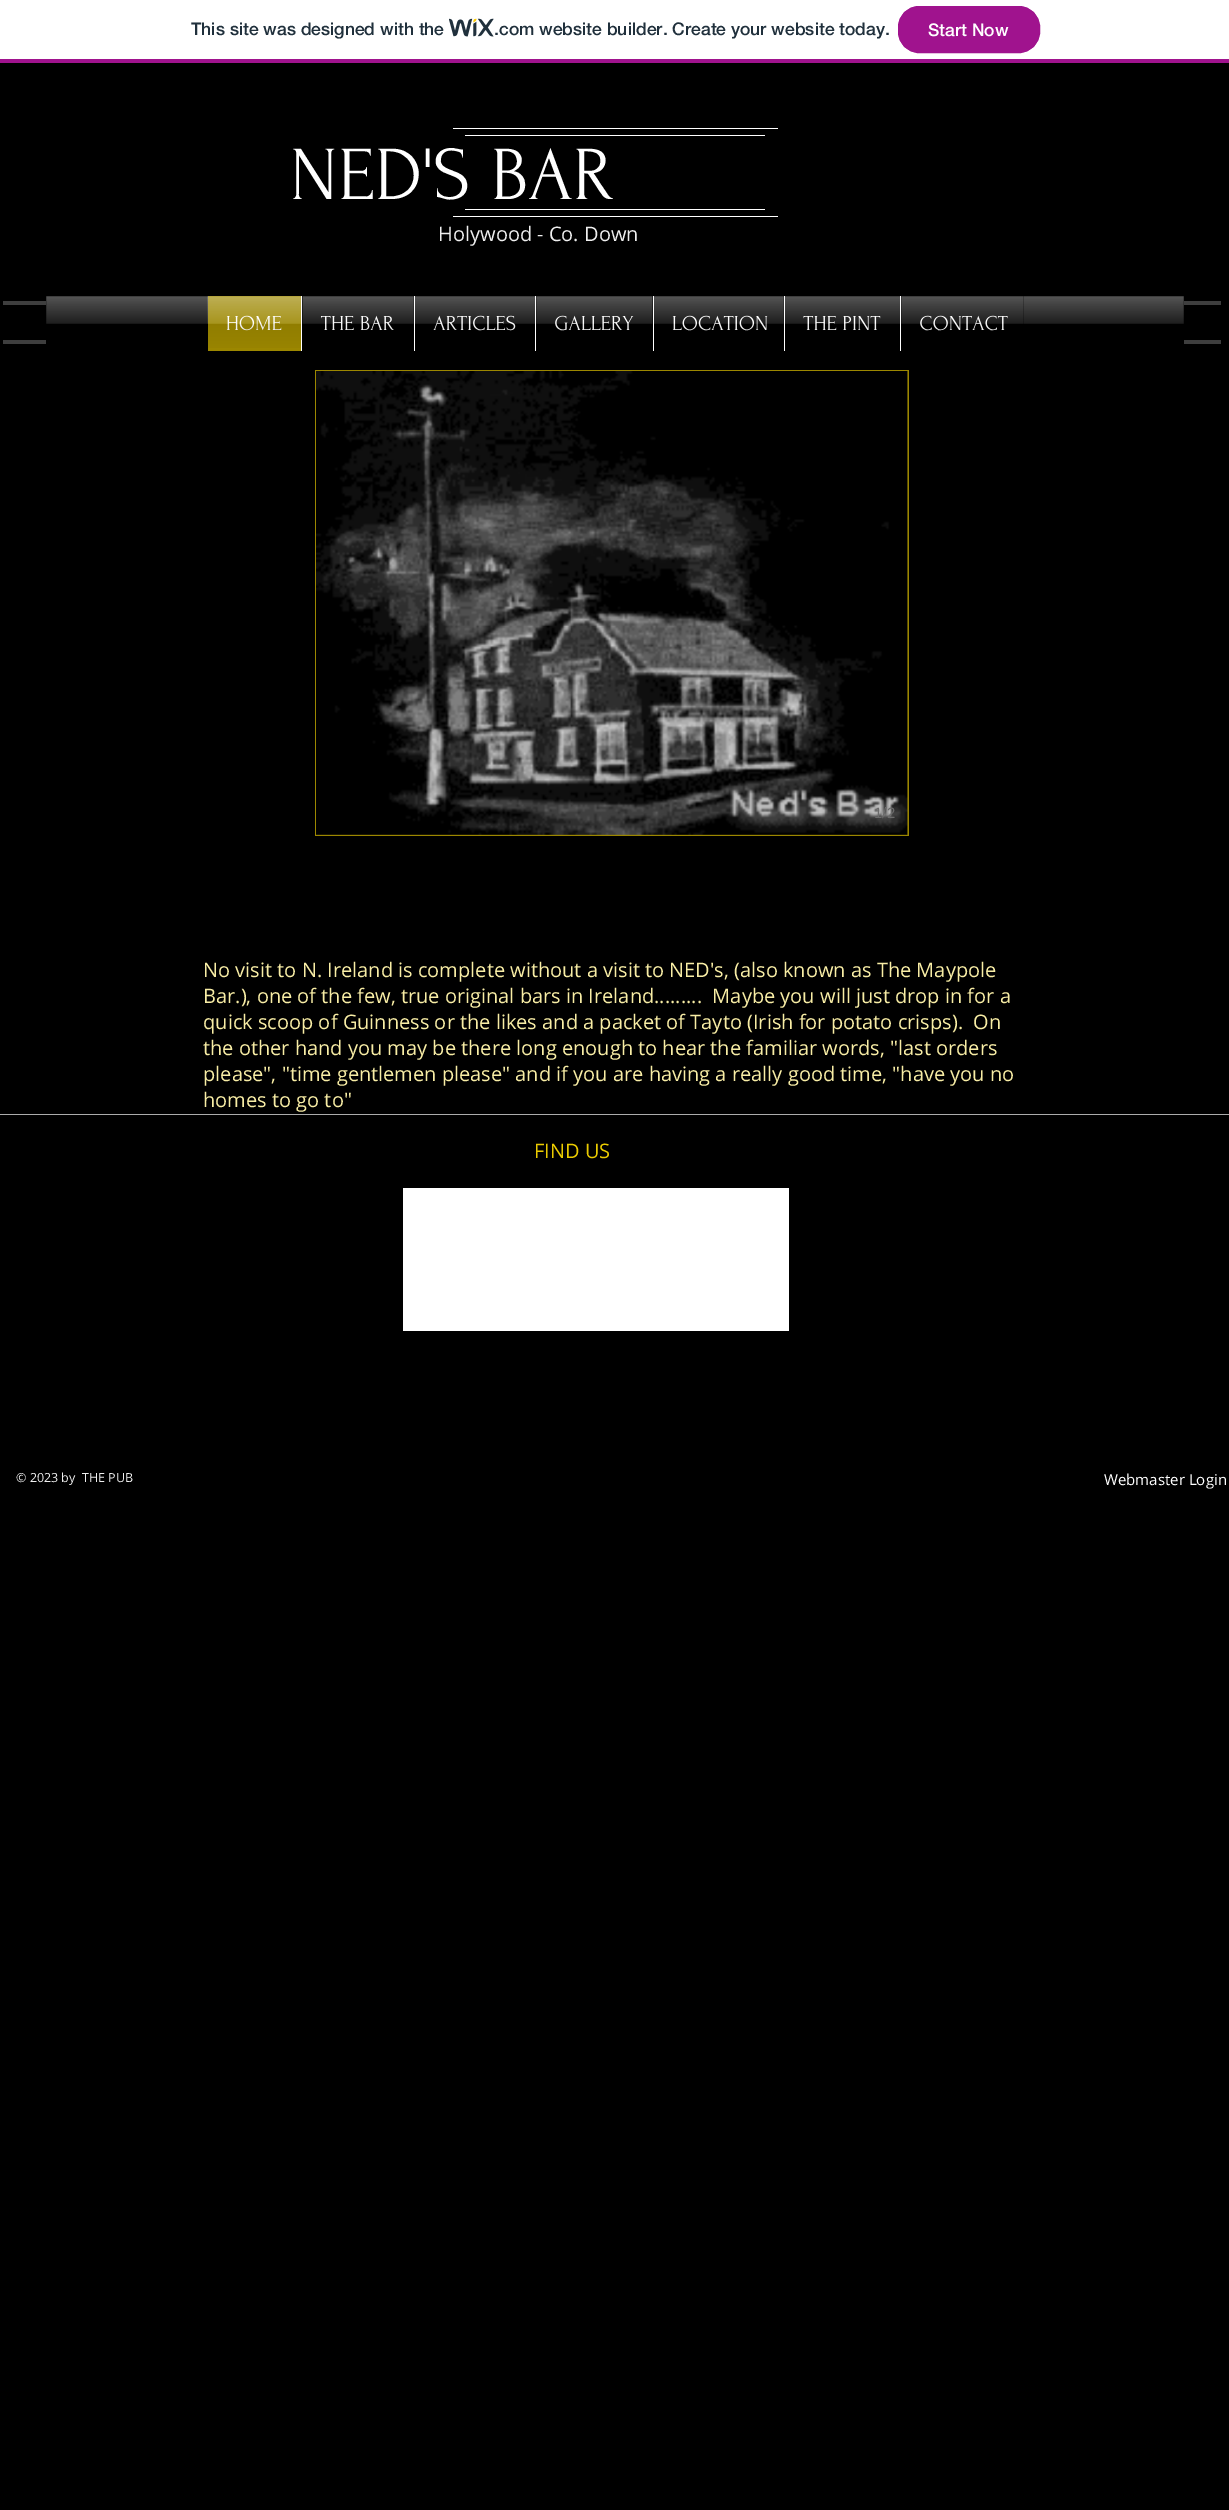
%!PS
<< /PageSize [1229 2510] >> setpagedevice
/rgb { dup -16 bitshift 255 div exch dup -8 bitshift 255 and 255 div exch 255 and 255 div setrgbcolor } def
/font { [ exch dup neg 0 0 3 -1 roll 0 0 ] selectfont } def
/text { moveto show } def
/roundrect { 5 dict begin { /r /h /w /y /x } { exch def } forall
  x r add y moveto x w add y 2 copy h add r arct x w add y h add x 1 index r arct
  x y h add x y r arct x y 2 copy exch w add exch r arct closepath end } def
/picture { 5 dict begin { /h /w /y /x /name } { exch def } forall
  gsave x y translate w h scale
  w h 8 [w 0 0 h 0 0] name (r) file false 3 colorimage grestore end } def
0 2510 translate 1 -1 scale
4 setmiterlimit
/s1 { /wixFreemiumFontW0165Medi-Medium 17.5 font 16#20303C rgb } def
/s2 { /wixFreemiumFontW0165Medi-Medium 17.5 font 16#FFFFFF rgb } def
/s3 { /Forum-Regular 76.25 font 16#FFFFFF rgb } def
/s4 { /OpenSans-Regular 20 font 16#EFEFEF rgb } def
/s5 { /Forum-Regular 21.25 font 16#FFFFFF rgb } def
/s6 { /LiberationSans-Regular 15 font 16#6B6B6B rgb } def
/s7 { /OpenSans-Regular 20 font 16#F8EDA5 rgb } def
/s8 { /OpenSans-Regular 20 font 16#EACB00 rgb } def
/s9 { /OpenSans-Regular 12.5 font 16#EFEFEF rgb } def
/s10 { /OpenSans-Regular 15 font 16#FFFFFF rgb } def
16#FFFFFF rgb
0 0 1229 2510 rectfill
16#A0138E rgb
0 59 1229 4 rectfill
s1
(This site was designed with the) 191 35 text
(pic1.raw) 449 18 45 19 picture
(.com website builder. Create your website today.) 494 35 text
16#A0138E rgb
898.5 6.5 141 46 20.5 roundrect gsave fill grestore
stroke
s2
(Start Now) 928 36 text
16#000000 rgb
0 63 1229 2447 rectfill
16#FFFFFF rgb
453 128 325 1 rectfill
465 135 300 1 rectfill
s3
(NED'S BAR) 290 199 text
465 209 300 1 rectfill
453 216 325 1 rectfill
s4
(Holywood - Co. Down) 438 241 text
16#3E3E3E rgb
3 301 1218 4 rectfill
3 340 1218 4 rectfill
16#000000 rgb
46 301 1138 43 rectfill
(pic2.raw) 46 296 1138 28 picture
16#9C8700 rgb
208 296 93 55 rectfill
s5
(HOME) 226 330 text
(pic3.raw) 207 296 94 52 picture
16#000000 rgb
302 296 112 28 rectfill
16#FFFFFF rgb
301 296 1 55 rectfill
(THE BAR) 321 330 text
(pic4.raw) 302 296 112 34 picture
16#000000 rgb
415 296 120 28 rectfill
16#FFFFFF rgb
414 296 1 55 rectfill
(ARTICLES) 433 330 text
(pic5.raw) 415 296 120 34 picture
16#000000 rgb
536 296 117 28 rectfill
16#FFFFFF rgb
535 296 1 55 rectfill
(GALLERY) 554 330 text
(pic6.raw) 536 296 117 34 picture
16#000000 rgb
654 296 130 28 rectfill
16#FFFFFF rgb
653 296 1 55 rectfill
(LOCATION) 672 330 text
(pic7.raw) 654 296 130 34 picture
16#000000 rgb
785 296 115 28 rectfill
16#FFFFFF rgb
784 296 1 55 rectfill
(THE PINT) 803 330 text
(pic8.raw) 785 296 115 34 picture
16#000000 rgb
901 296 123 28 rectfill
16#FFFFFF rgb
900 296 1 55 rectfill
(CONTACT) 919 330 text
(pic9.raw) 901 296 123 34 picture
16#9C8700 rgb
315 370 594 466 rectfill
(pic10.raw) 316 371 592 464 picture
s6
(1/2) 874 818 text
s7
(No visit to N. Ireland is complete without a visit to NED's, \(also known as The Maypole) 203 977 text
(Bar.\), one of the few, true original bars in Ireland.........  Maybe you will just drop in for a) 203 1003 text
(quick scoop of Guinness or the likes and a packet of Tayto \(Irish for potato crisps\).  On) 203 1029 text
(the other hand you may be there long enough to hear the familiar words, "last orders) 203 1055 text
(please", "time gentlemen please" and if you are having a really good time, "have you no) 203 1081 text
(homes to go to") 203 1107 text
16#ABABAB rgb
0 1114 1229 1 rectfill
s8
(FIND US) 534 1158 text
16#FFFFFF rgb
403 1188 386 143 rectfill
s9
(© 2023 by) 16 1482 text
(THE PUB) 82 1482 text
s10
(Webmaster Login) 1104 1485 text
showpage
